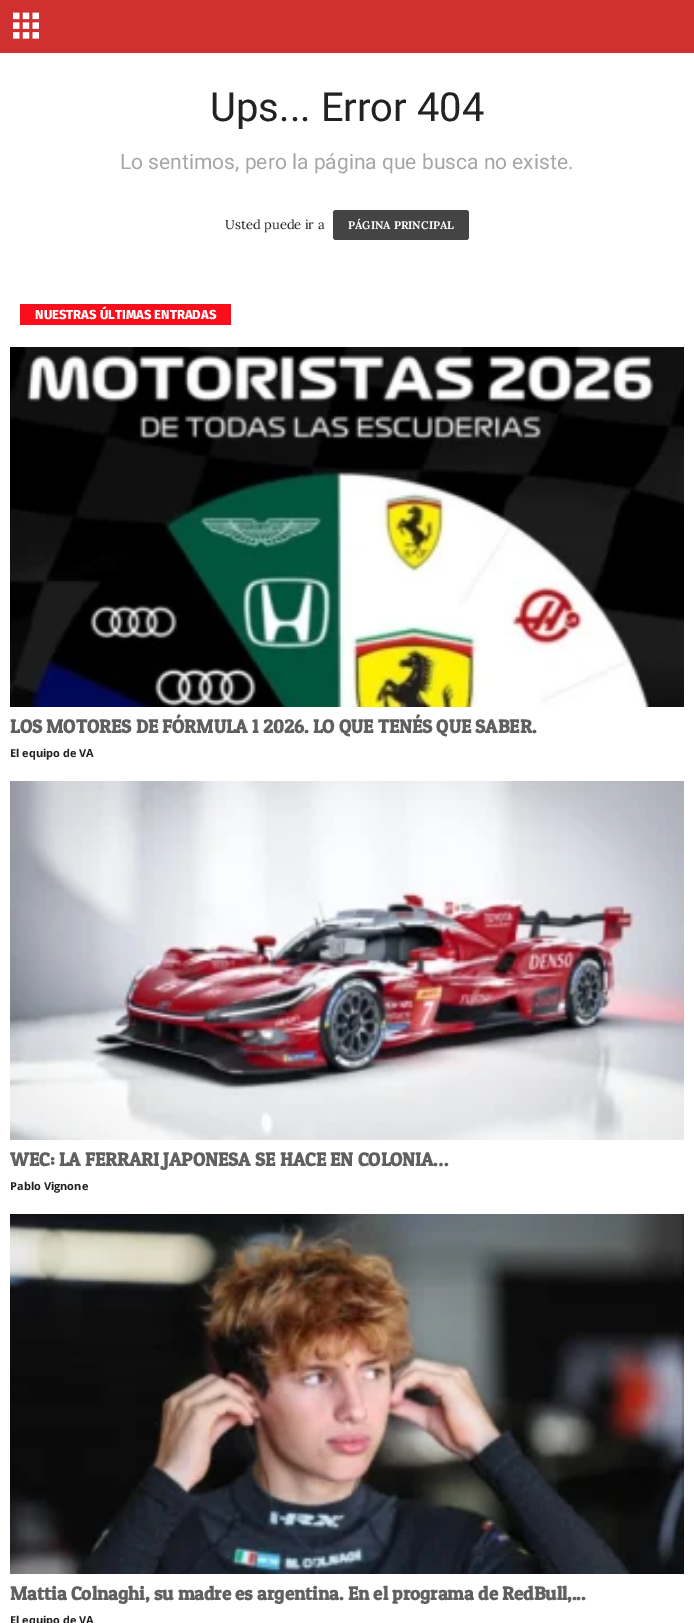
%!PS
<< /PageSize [694 1623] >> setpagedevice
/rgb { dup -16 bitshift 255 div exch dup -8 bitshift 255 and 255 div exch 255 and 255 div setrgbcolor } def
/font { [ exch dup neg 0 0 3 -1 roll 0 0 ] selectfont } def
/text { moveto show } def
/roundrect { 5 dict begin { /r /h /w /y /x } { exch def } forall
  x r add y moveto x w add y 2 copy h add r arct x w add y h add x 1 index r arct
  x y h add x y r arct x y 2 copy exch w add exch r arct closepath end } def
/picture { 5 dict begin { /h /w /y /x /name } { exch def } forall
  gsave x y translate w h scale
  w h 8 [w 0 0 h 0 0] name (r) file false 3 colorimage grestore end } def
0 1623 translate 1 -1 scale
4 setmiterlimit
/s1 { /Roboto-Regular 40 font 16#222222 rgb } def
/s2 { /Roboto-Regular 21 font 16#A6A6A6 rgb } def
/s3 { /Lora-Regular 13 font 16#222222 rgb } def
/s4 { /Lora-Bold 11 font 16#FFFFFF rgb } def
/s5 { /FiraSans-ExtraBold 13 font 16#FFFFFF rgb } def
/s6 { /PatuaOne-Bold 19 font 16#606060 rgb } def
/s7 { /OpenSans-Bold 11 font 16#222222 rgb } def
16#FFFFFF rgb
0 0 694 1623 rectfill
16#D13030 rgb
0 0 694 53 rectfill
(pic1.raw) 13 12 26 27 picture
s1
(Ups... Error 404) 210 121 text
s2
(Lo sentimos, pero la página que busca no existe.) 120 169 text
s3
(Usted puede ir a) 225 229 text
16#444444 rgb
333 210 136 30 3 roundrect fill
s4
(PÁGINA PRINCIPAL) 348 229 text
16#FC0D1C rgb
20 304 211 21 rectfill
s5
(NUESTRAS ÚLTIMAS ENTRADAS) 35 319 text
(pic2.raw) 10 347 674 360 picture
s6
(LOS MOTORES DE FÓRMULA 1 2026. LO QUE TENÉS QUE SABER.) 10 733 text
s7
(El equipo de VA) 10 757 text
(pic3.raw) 10 781 674 359 picture
s6
(WEC: LA FERRARI JAPONESA SE HACE EN COLONIA…) 10 1166 text
s7
(Pablo Vignone) 10 1190 text
(pic4.raw) 10 1214 674 360 picture
s6
(Mattia Colnaghi, su madre es argentina. En el programa de RedBull,...) 10 1600 text
s7
(El equipo de VA) 10 1624 text
showpage
